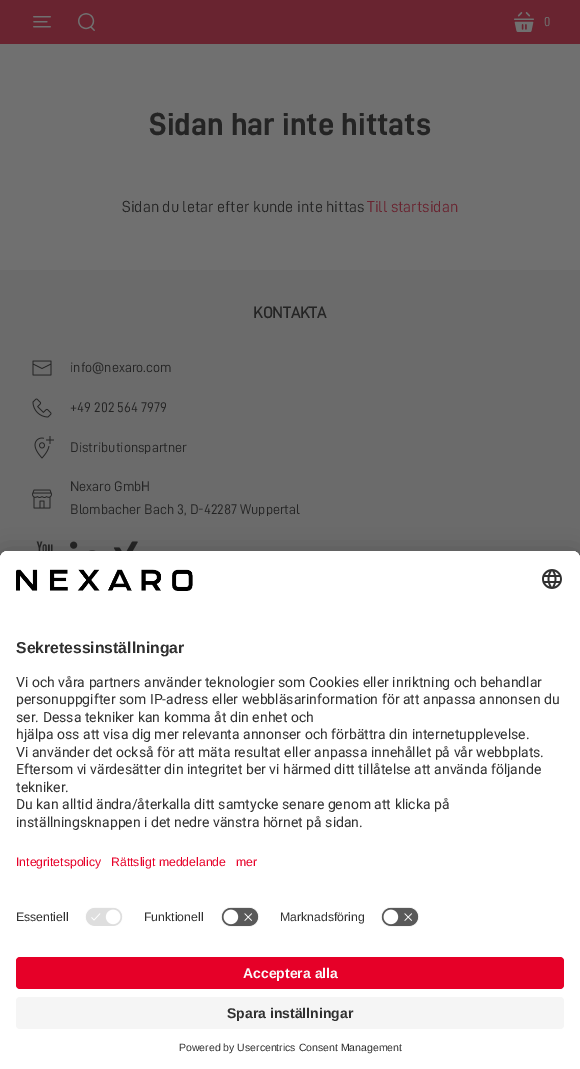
%!PS
<< /PageSize [580 1069] /PageUsesTransparency true >> setpagedevice
/rgb { dup -16 bitshift 255 div exch dup -8 bitshift 255 and 255 div exch 255 and 255 div setrgbcolor } def
/font { [ exch dup neg 0 0 3 -1 roll 0 0 ] selectfont } def
/text { moveto show } def
/alpha { dup .setfillconstantalpha .setstrokeconstantalpha } def
/roundrect { 5 dict begin { /r /h /w /y /x } { exch def } forall
  x r add y moveto x w add y 2 copy h add r arct x w add y h add x 1 index r arct
  x y h add x y r arct x y 2 copy exch w add exch r arct closepath end } def
/shadow { 12 dict begin { /a /b /q /h /w /y /x } { exch def } forall gsave /was 0 def
  9 -2 -9 { dup b mul 4 div /e exch def 1 sub .425 mul 2.718 exch exp 1 add a .99 .min exch div /now exch def
    1 1 now sub 1 was sub div sub alpha /was now def
    w h .min e 2 mul add 0 gt { x e sub y e sub w e 2 mul add h e 2 mul add
      q e add b .6 mul add w h .min 2 div e add .min 0 .max roundrect fill } if } for grestore end } def
/picture { 5 dict begin { /h /w /y /x /name } { exch def } forall
  gsave x y translate w h scale
  w h 8 [w 0 0 h 0 0] name (r) file false 3 colorimage grestore end } def
0 .pushpdf14devicefilter
0 1069 translate 1 -1 scale
4 setmiterlimit
/s1 { /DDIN-Regular 13 font 16#707070 rgb } def
/s2 { /DDIN-Bold 32 font 16#242424 rgb } def
/s3 { /DDIN-Regular 16 font 16#242424 rgb } def
/s4 { /DDIN-Regular 16 font 16#692430 rgb } def
/s5 { /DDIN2-Bold 16 font 16#242424 rgb } def
/s6 { /DDIN-Regular 14 font 16#242424 rgb } def
/s7 { /LiberationSans-Bold 15.75 font 16#303030 rgb } def
/s8 { /Roboto-Regular 14 font 16#303030 rgb } def
/s9 { /LiberationSans-Regular 12.25 font 16#E60028 rgb } def
/s10 { /LiberationSans-Regular 12.25 font 16#303030 rgb } def
/s11 { /LiberationSans-Bold 14 font 16#FAFAFA rgb } def
/s12 { /LiberationSans-Bold 14 font 16#303030 rgb } def
/s13 { /LiberationSans-Regular 10.5 font 16#303030 rgb } def
16#707070 rgb
0 0 580 1069 rectfill
16#692430 rgb
0 0 580 44 rectfill
(pic1.raw) 33 16 18 12 picture
(pic2.raw) 33 21 15 2 picture
(pic3.raw) 78 13 17 18 picture
(pic4.raw) 514 12 20 20 picture
s1
(0) 544 26 text
s2
(Sidan har inte hittats) 149 135 text
s3
(Sidan du letar efter kunde inte hittas) 122 212 text
s4
(Till startsidan) 367 212 text
16#6B6B6B rgb
0 270 580 289 rectfill
s5
(KONTAKTA) 253 318 text
(pic5.raw) 32 360 20 16 picture
s6
(info@nexaro.com) 70 372 text
(pic6.raw) 32 398 20 20 picture
(+49 202 564 7979) 70 412 text
(pic7.raw) 34 436 20 23 picture
(Distributionspartner) 70 452 text
(Nexaro GmbH) 70 491 text
(pic8.raw) 32 489 20 20 picture
(Blombacher Bach 3, D-42287 Wuppertal) 70 514 text
(pic9.raw) 36 541 17 10 picture
(pic10.raw) 70 541 26 10 picture
(pic11.raw) 113 541 25 10 picture
16#000000 rgb
0 571 580 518 8 14 0.3 shadow
0 556 580 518 8 13 0.22 shadow
16#FFFFFF rgb
8 551 moveto 572 551 lineto 576.5 551 580 554.5 580 559 curveto 580 1069 lineto 0 1069 lineto 0 559 lineto 0 554.5 3.5 551 8 551 curveto closepath fill
8 551 moveto 572 551 lineto 576.5 551 580 554.5 580 559 curveto 580 945 lineto 0 945 lineto 0 559 lineto 0 554.5 3.5 551 8 551 curveto closepath fill
8 551 moveto 572 551 lineto 576.5 551 580 554.5 580 559 curveto 580 901 lineto 0 901 lineto 0 559 lineto 0 554.5 3.5 551 8 551 curveto closepath fill
(pic12.raw) 16 569 177 22 picture
(pic13.raw) 542 569 20 20 picture
s7
(Sekretessinställningar) 16 653 text
s8
(Vi och våra partners använder teknologier som Cookies eller inriktning och behandlar) 16 687 text
(personuppgifter som IP-adress eller webbläsarinformation för att anpassa annonsen du) 16 704 text
(ser. Dessa tekniker kan komma åt din enhet och) 16 722 text
(hjälpa oss att visa dig mer relevanta annonser och förbättra din internetupplevelse.) 16 739 text
(Vi använder det också för att mäta resultat eller anpassa innehållet på vår webbplats.) 16 757 text
(Eftersom vi värdesätter din integritet ber vi härmed ditt tillåtelse att använda följande) 16 774 text
(tekniker.) 16 792 text
(Du kan alltid ändra/återkalla ditt samtycke senare genom att klicka på) 16 809 text
(inställningsknappen i det nedre vänstra hörnet på sidan.) 16 827 text
s9
(Integritetspolicy) 16 866 text
(Rättsligt meddelande) 111 866 text
(mer) 236 866 text
s10
(Essentiell) 16 921 text
(pic14.raw) 85 907 38 19 picture
(Funktionell) 144 921 text
(pic15.raw) 221 907 38 20 picture
(Marknadsföring) 280 921 text
(pic15.raw) 381 907 38 20 picture
16#E60028 rgb
16 957 548 32 4 roundrect fill
s11
(Acceptera alla) 243 978 text
16#F5F5F5 rgb
16 997 548 32 4 roundrect fill
s12
(Spara inställningar) 227 1018 text
s13
(Powered by Usercentrics Consent Management) 179 1051 text
.poppdf14devicefilter showpage
